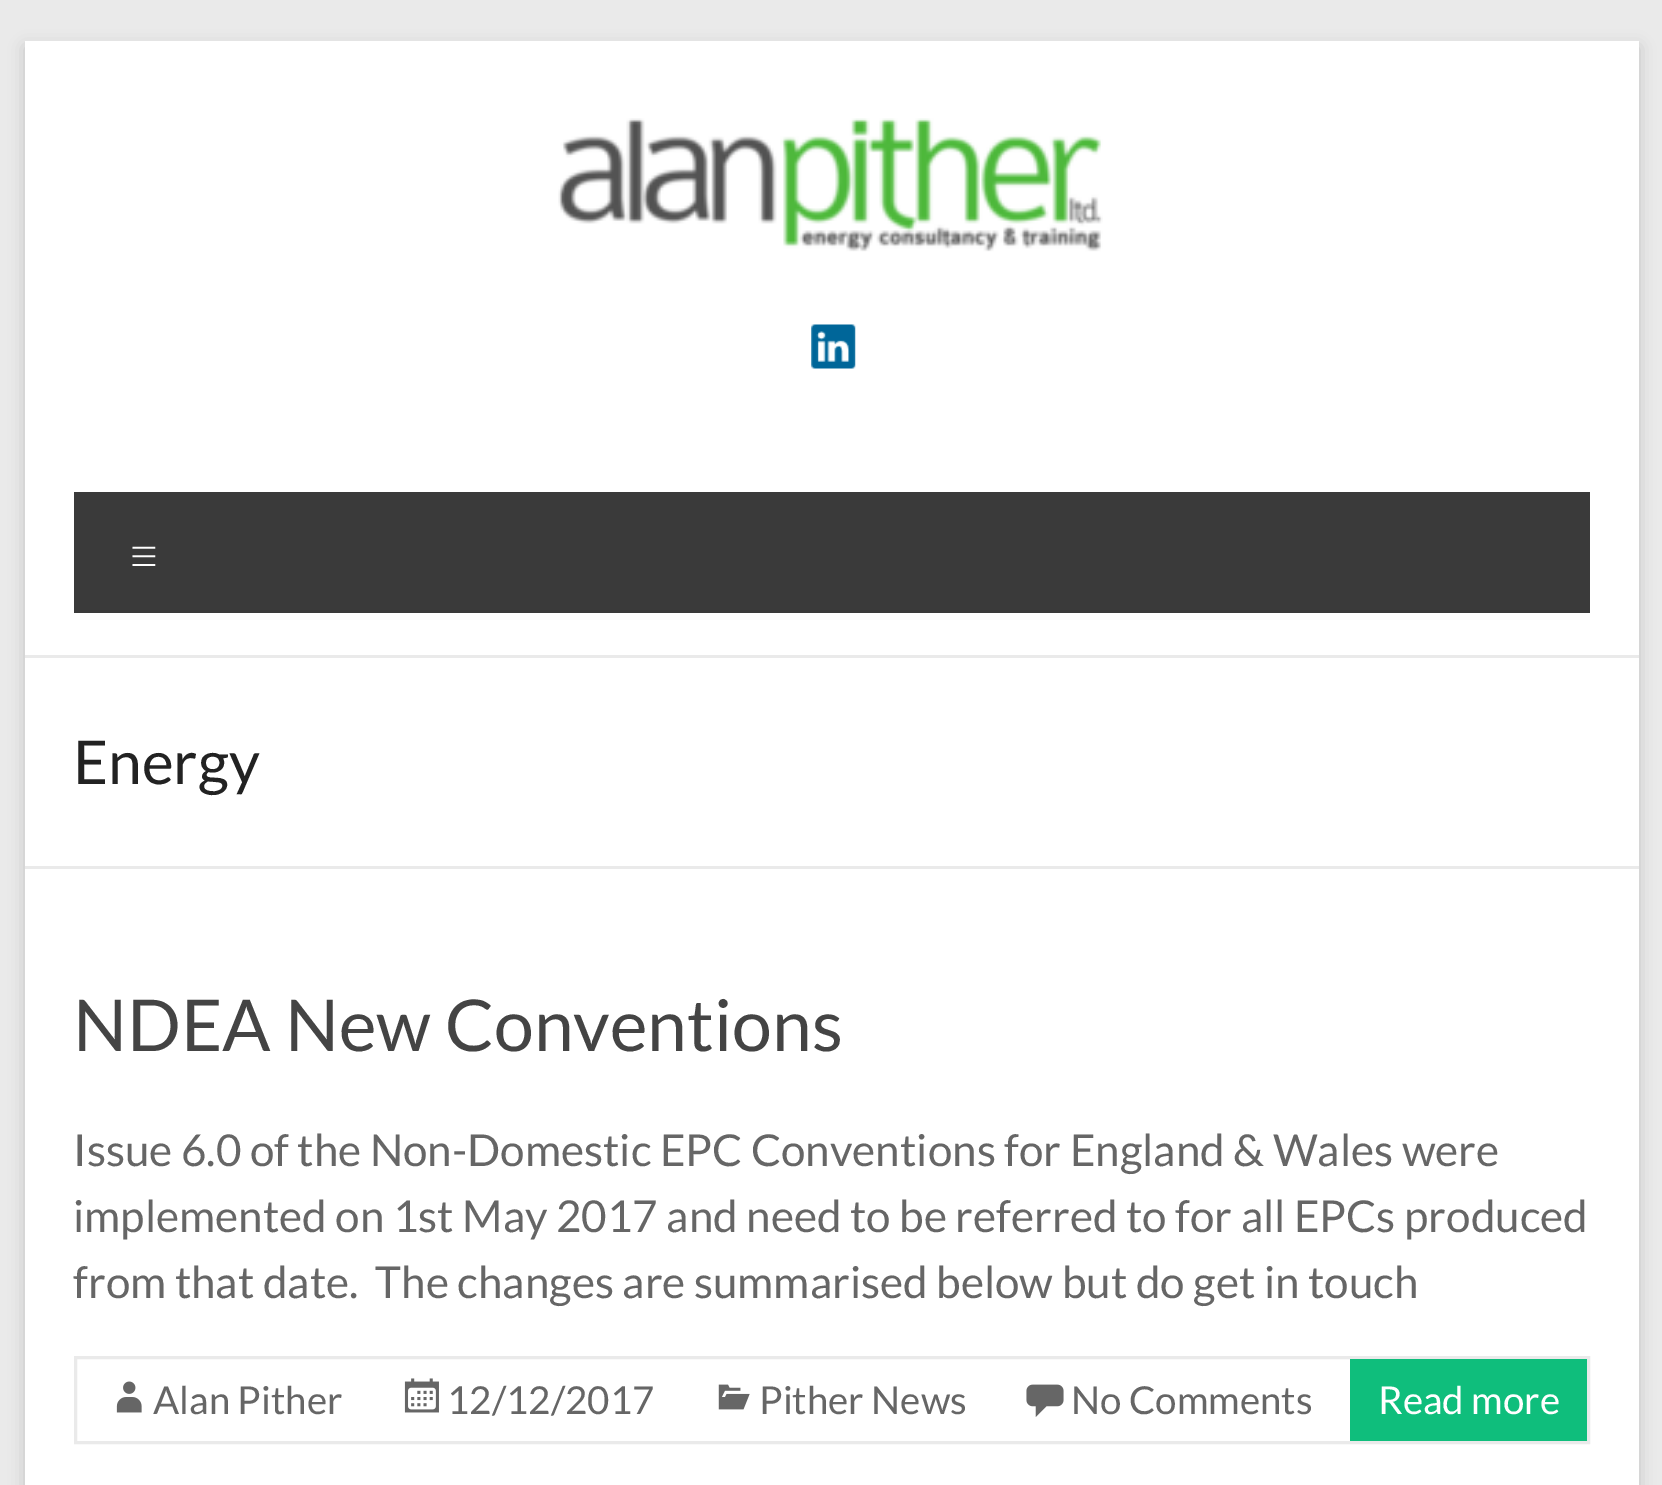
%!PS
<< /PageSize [1662 1485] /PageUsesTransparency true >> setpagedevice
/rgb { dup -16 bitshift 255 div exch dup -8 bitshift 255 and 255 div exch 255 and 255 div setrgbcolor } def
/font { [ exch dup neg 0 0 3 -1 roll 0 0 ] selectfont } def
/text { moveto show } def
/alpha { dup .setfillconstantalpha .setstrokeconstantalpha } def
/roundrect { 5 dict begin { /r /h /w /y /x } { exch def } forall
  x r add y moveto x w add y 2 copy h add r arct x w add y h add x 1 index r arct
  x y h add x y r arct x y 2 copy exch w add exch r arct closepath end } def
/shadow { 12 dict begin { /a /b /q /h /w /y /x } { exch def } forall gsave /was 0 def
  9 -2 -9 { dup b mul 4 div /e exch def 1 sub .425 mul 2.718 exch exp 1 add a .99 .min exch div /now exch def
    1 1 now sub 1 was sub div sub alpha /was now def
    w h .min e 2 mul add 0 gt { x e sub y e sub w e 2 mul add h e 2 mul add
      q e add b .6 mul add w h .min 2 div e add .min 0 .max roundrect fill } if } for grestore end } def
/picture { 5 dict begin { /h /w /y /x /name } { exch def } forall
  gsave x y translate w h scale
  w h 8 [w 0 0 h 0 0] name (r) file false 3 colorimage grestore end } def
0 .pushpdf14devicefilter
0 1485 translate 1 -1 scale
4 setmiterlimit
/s1 { /Lato-Light 55 font 16#FFFFFF rgb } def
/s2 { /Lato-Regular 60.5 font 16#222222 rgb } def
/s3 { /Lato-Regular 71.5 font 16#444444 rgb } def
/s4 { /Lato-Regular 44 font 16#666666 rgb } def
/s5 { /Lato-Regular 38.5 font 16#666666 rgb } def
/s6 { /Lato-Regular 38.5 font 16#FFFFFF rgb } def
16#EAEAEA rgb
0 0 1662 1485 rectfill
16#646464 rgb
25 47 1614 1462 0 8 0.3 shadow
16#FFFFFF rgb
25 41 1614 1444 rectfill
16#EAEAEA rgb
25 655 1614 3 rectfill
(pic1.raw) 558 118 545 134 picture
(pic2.raw) 811 324 45 45 picture
16#3A3A3A rgb
74 492 1516 121 rectfill
s1
(≡) 128 575 text
16#EAEAEA rgb
25 866 1614 3 rectfill
s2
(Energy) 73 784 text
s3
(NDEA New Conventions) 73 1051 text
s4
(Issue 6.0 of the Non-Domestic EPC Conventions for England & Wales were) 73 1166 text
(implemented on 1st May 2017 and need to be referred to for all EPCs produced) 73 1232 text
(from that date.  The changes are summarised below but do get in touch) 73 1298 text
16#EAEAEA rgb
3 setlinewidth
75.5 1357.5 1513 85 rectstroke
(pic3.raw) 116 1381 26 32 picture
s5
(Alan Pither) 153 1414 text
(pic4.raw) 404 1378 35 35 picture
(12/12/2017) 447 1414 text
(pic5.raw) 718 1384 32 26 picture
(Pither News) 759 1414 text
(pic6.raw) 1026 1384 38 33 picture
(No Comments) 1071 1414 text
16#0FBE7C rgb
1350 1359 237 82 rectfill
s6
(Read more) 1378 1414 text
.poppdf14devicefilter showpage
